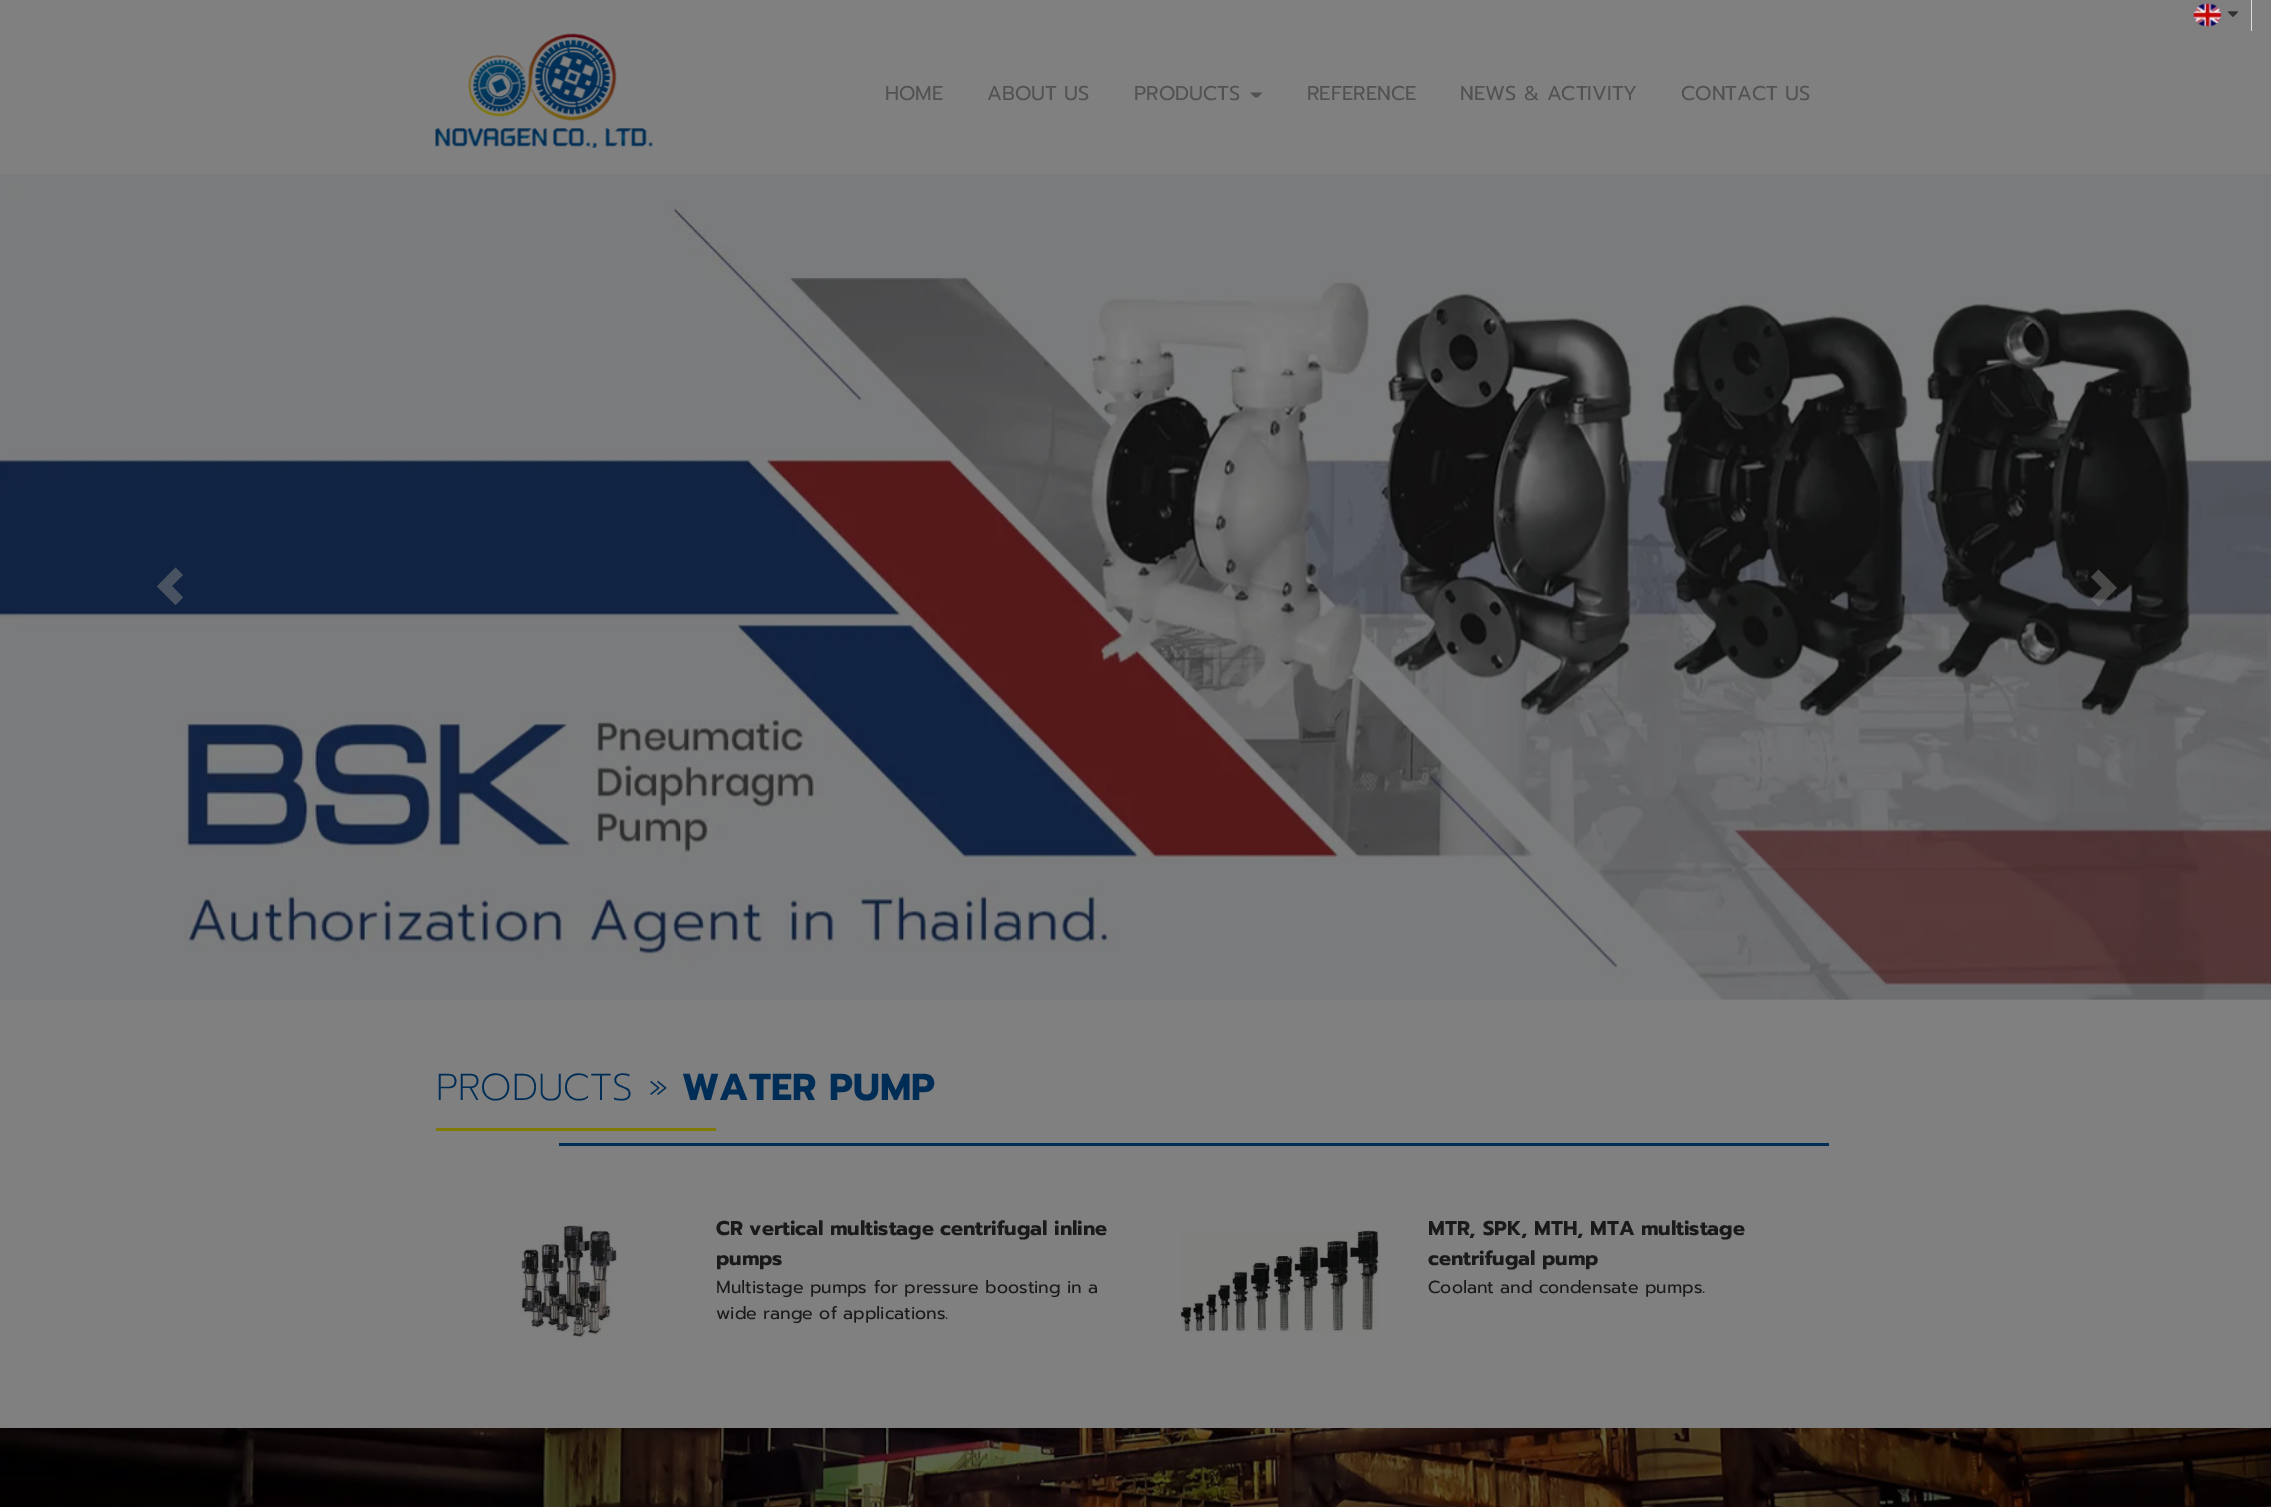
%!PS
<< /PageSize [2271 1507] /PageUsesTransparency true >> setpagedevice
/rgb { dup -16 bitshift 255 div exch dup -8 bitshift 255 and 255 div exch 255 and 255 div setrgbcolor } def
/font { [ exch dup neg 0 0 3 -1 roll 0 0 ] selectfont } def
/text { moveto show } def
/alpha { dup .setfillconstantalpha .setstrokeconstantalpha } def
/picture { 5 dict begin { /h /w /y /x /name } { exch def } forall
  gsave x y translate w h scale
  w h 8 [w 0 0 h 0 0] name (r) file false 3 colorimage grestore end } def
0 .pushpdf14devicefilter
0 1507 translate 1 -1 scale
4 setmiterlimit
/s1 { /Prompt-Regular 20 font 16#515253 rgb } def
/s2 { /Prompt-ExtraLight 37.5 font 16#002D56 rgb } def
/s3 { /Prompt-Bold 37.5 font 16#002D56 rgb } def
/s4 { /Prompt-Bold 20 font 16#1A1A1A rgb } def
/s5 { /Prompt-Regular 17.5 font 16#1A1A1A rgb } def
16#808080 rgb
0 0 2271 1507 rectfill
16#DDDDDD rgb
2251 0 1 31 rectfill
(pic1.raw) 2193 3 29 24 picture
(pic2.raw) 2228 11 10 6 picture
(pic3.raw) 435 33 218 116 picture
s1
(HOME) 885 100 text
(ABOUT US) 987 100 text
(PRODUCTS) 1134 100 text
1250 92.5 moveto 1262.5 92.5 lineto 1257.5 97.5 lineto 1255 97.5 lineto closepath fill
(REFERENCE) 1307 100 text
(NEWS & ACTIVITY) 1460 100 text
(CONTACT US) 1681 100 text
(pic4.raw) 0 174 2271 826 picture
16#495261 rgb
157 586.5 moveto 175.5 605 lineto 183 597.5 lineto 172 586 lineto 183 575 lineto 175.5 567.5 lineto closepath fill
0.5 alpha
16#808080 rgb
2091 599 moveto 2102 588 lineto 2091 577 lineto 2098.5 569.5 lineto 2117 588 lineto 2098.5 606.5 lineto closepath fill
1 alpha
s2
(PRODUCTS ») 436 1100 text
s3
(WATER PUMP) 682 1100 text
16#807900 rgb
436 1128 280 3 rectfill
16#002D56 rgb
559 1143 1270 3 rectfill
(pic5.raw) 520 1225 97 113 picture
s4
(CR vertical multistage centrifugal inline) 716 1235 text
(pumps) 716 1265 text
s5
(Multistage pumps for pressure boosting in a) 716 1293 text
(wide range of applications.) 716 1319 text
(pic6.raw) 1180 1230 200 103 picture
s4
(MTR, SPK, MTH, MTA multistage) 1428 1235 text
(centrifugal pump) 1428 1265 text
s5
(Coolant and condensate pumps.) 1428 1293 text
(pic7.raw) 0 1428 2271 79 picture
.poppdf14devicefilter showpage
